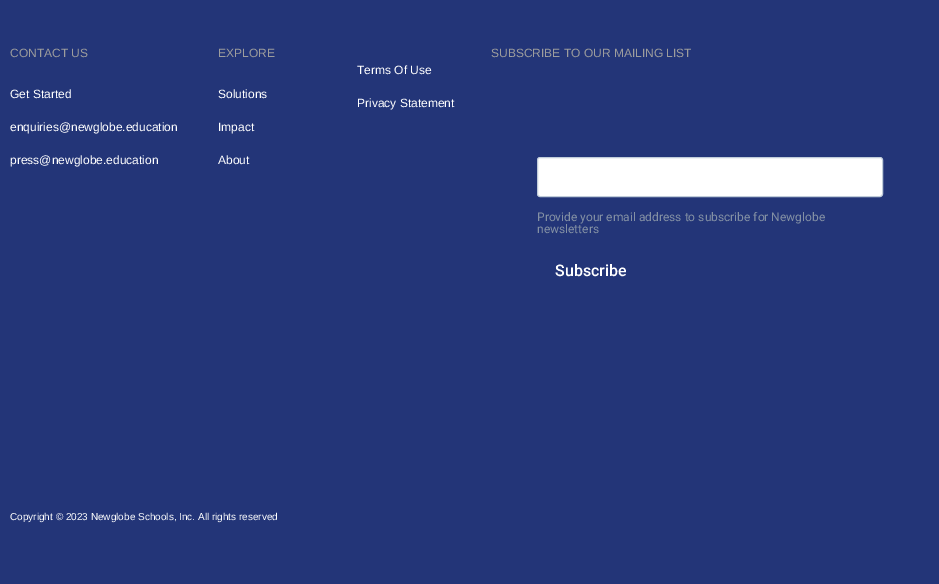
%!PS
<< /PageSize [939 584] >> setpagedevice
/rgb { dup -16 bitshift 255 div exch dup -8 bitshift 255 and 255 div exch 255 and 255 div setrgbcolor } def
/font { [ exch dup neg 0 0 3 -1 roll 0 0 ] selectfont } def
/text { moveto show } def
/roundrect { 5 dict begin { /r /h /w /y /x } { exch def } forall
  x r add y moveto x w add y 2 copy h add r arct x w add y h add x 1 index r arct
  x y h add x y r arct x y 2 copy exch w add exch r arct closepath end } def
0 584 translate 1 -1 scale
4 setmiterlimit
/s1 { /LiberationSans-Regular 12 font 16#9D9D9D rgb } def
/s2 { /LiberationSans-Regular 12 font 16#FFFFFF rgb } def
/s3 { /Roboto-Regular 12 font 16#8390A4 rgb } def
/s4 { /Roboto-Medium 16 font 16#FFFFFF rgb } def
/s5 { /LiberationSans-Regular 10 font 16#FFFFFF rgb } def
16#233578 rgb
0 0 939 584 rectfill
s1
(CONTACT US) 10 57 text
s2
(Get Started) 10 98 text
(enquiries@newglobe.education) 10 131 text
(press@newglobe.education) 10 164 text
s1
(EXPLORE) 218 57 text
s2
(Solutions) 218 98 text
(Impact) 218 131 text
(About) 218 164 text
(Terms Of Use) 357 74 text
(Privacy Statement) 357 107 text
s1
(SUBSCRIBE TO OUR MAILING LIST) 491 57 text
16#FFFFFF rgb
537.5 157.5 345 39 2.5 roundrect gsave fill grestore
16#C0CCDA rgb
stroke
s3
(Provide your email address to subscribe for Newglobe) 537 221 text
(newsletters) 537 233 text
s4
(Subscribe) 555 276 text
s5
(Copyright © 2023 Newglobe Schools, Inc. All rights reserved) 10 520 text
showpage
